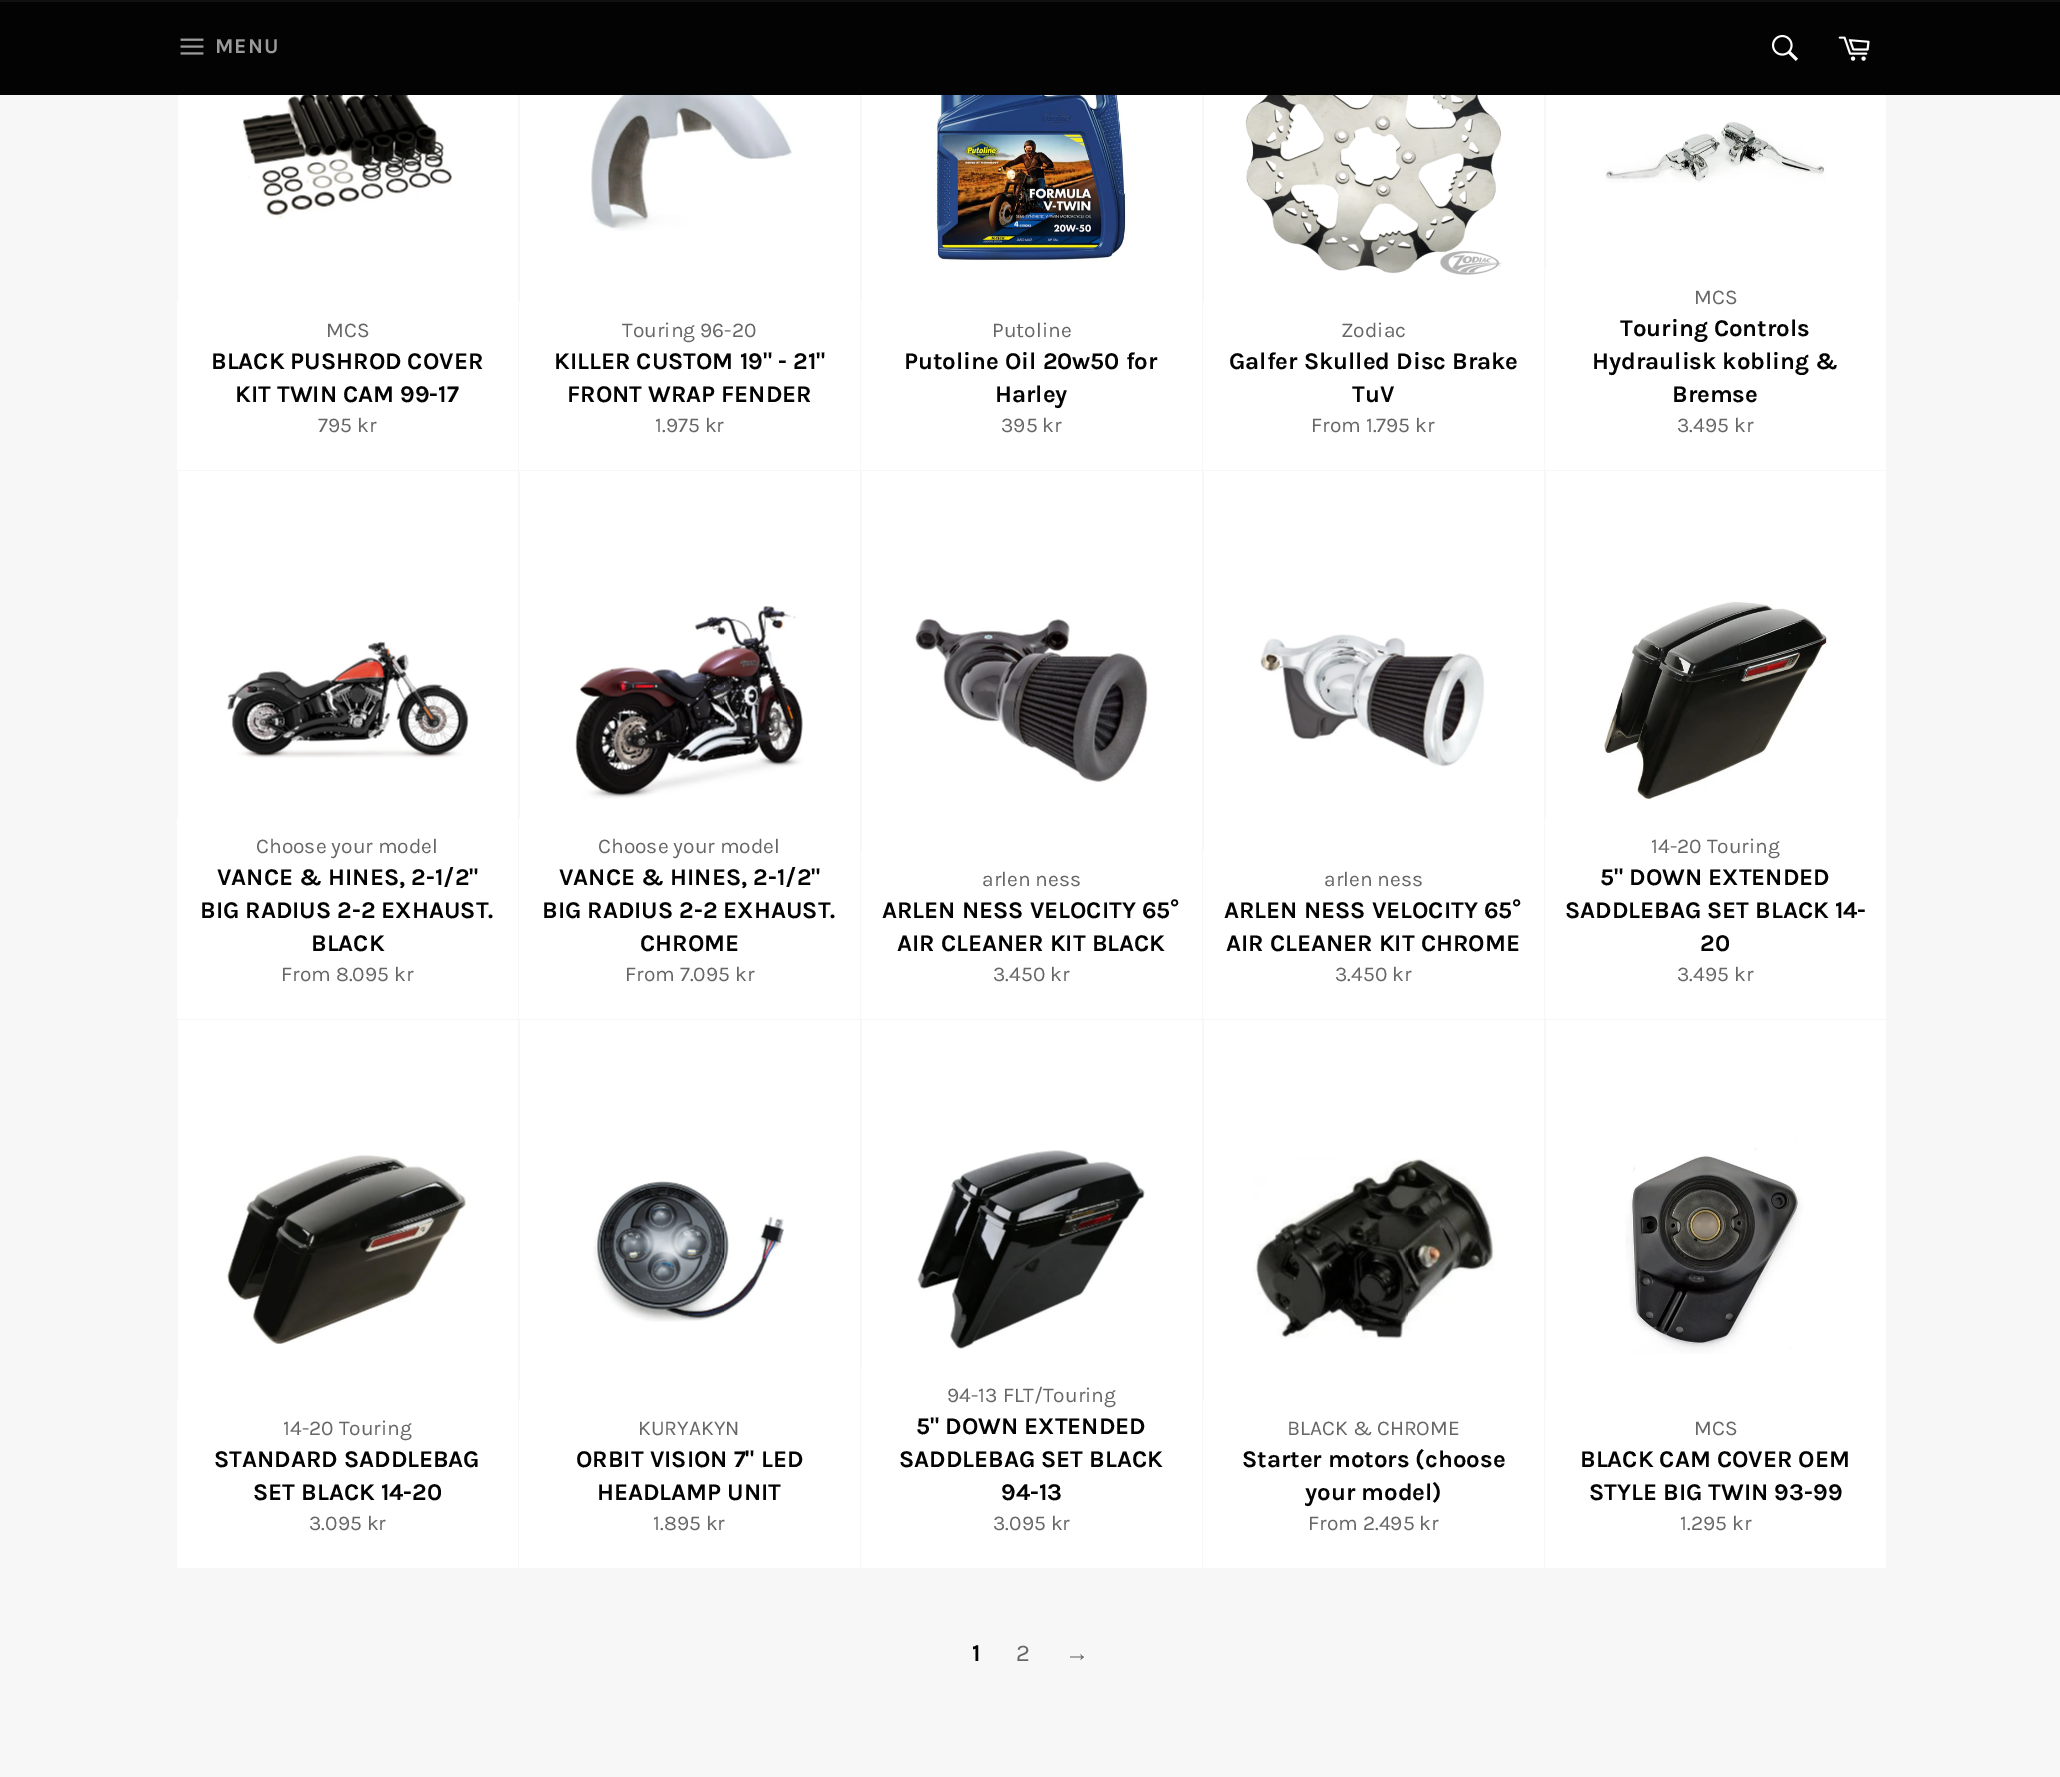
%!PS
<< /PageSize [2060 1777] >> setpagedevice
/rgb { dup -16 bitshift 255 div exch dup -8 bitshift 255 and 255 div exch 255 and 255 div setrgbcolor } def
/font { [ exch dup neg 0 0 3 -1 roll 0 0 ] selectfont } def
/text { moveto show } def
/picture { 5 dict begin { /h /w /y /x /name } { exch def } forall
  gsave x y translate w h scale
  w h 8 [w 0 0 h 0 0] name (r) file false 3 colorimage grestore end } def
0 1777 translate 1 -1 scale
4 setmiterlimit
/s1 { /Karla-Regular 21 font 16#666666 rgb } def
/s2 { /Karla-Bold 24 font 16#030303 rgb } def
/s3 { /Karla-Regular 24 font 16#666666 rgb } def
/s4 { /LiberationSans-Regular 24 font 16#666666 rgb } def
16#F7F7F7 rgb
0 0 2060 1777 rectfill
16#030303 rgb
0 2 2060 93 rectfill
16#101010 rgb
0 0 2060 2 rectfill
(pic1.raw) 180 38 24 17 picture
/Karla-Bold 21 font
16#9A9A9A rgb
215 53 moveto 1 0 (MENU) ashow
(pic2.raw) 1771 34 27 27 picture
(pic3.raw) 1838 36 32 25 picture
16#FFFFFF rgb
178 95 340 207 rectfill
(pic4.raw) 242 95 210 124 picture
177 302 341 168 rectfill
s1
(MCS) 326 337 text
s2
(BLACK PUSHROD COVER) 211 369 text
(KIT TWIN CAM 99-17) 235 402 text
s1
(795 kr) 318 432 text
16#FFFFFF rgb
520 95 340 207 rectfill
(pic5.raw) 591 95 201 136 picture
519 302 341 168 rectfill
s1
(Touring 96-20) 622 337 text
s2
(KILLER CUSTOM 19" - 21") 554 369 text
(FRONT WRAP FENDER) 567 402 text
s1
(1.975 kr) 655 432 text
16#FFFFFF rgb
862 95 340 207 rectfill
(pic6.raw) 934 95 193 167 picture
861 302 341 168 rectfill
s1
(Putoline) 992 337 text
s2
(Putoline Oil 20w50 for) 904 369 text
(Harley) 995 402 text
s1
(395 kr) 1001 432 text
16#FFFFFF rgb
1204 95 340 207 rectfill
(pic7.raw) 1245 95 257 180 picture
1203 302 341 168 rectfill
s1
(Zodiac) 1341 337 text
s2
(Galfer Skulled Disc Brake) 1229 369 text
(TuV) 1352 402 text
s1
(From 1.795 kr) 1311 432 text
16#FFFFFF rgb
1546 95 340 174 rectfill
(pic8.raw) 1605 122 221 61 picture
1545 269 341 201 rectfill
s1
(MCS) 1694 304 text
s2
(Touring Controls) 1620 336 text
(Hydraulisk kobling &) 1592 369 text
(Bremse) 1672 402 text
s1
(3.495 kr) 1677 432 text
16#FFFFFF rgb
178 471 340 347 rectfill
(pic9.raw) 226 641 243 117 picture
177 818 341 201 rectfill
s1
(Choose your model) 256 853 text
s2
(VANCE & HINES, 2-1/2") 217 885 text
(BIG RADIUS 2-2 EXHAUST.) 200 918 text
(BLACK) 311 951 text
s1
(From 8.095 kr) 281 981 text
16#FFFFFF rgb
520 471 340 347 rectfill
(pic10.raw) 575 606 228 193 picture
519 818 341 201 rectfill
s1
(Choose your model) 598 853 text
s2
(VANCE & HINES, 2-1/2") 559 885 text
(BIG RADIUS 2-2 EXHAUST.) 542 918 text
(CHROME) 640 951 text
s1
(From 7.095 kr) 625 981 text
16#FFFFFF rgb
862 471 340 380 rectfill
(pic11.raw) 915 618 233 165 picture
861 851 341 168 rectfill
s1
(arlen ness) 982 886 text
s2
(ARLEN NESS VELOCITY 65°) 882 918 text
(AIR CLEANER KIT BLACK) 897 951 text
s1
(3.450 kr) 993 981 text
16#FFFFFF rgb
1204 471 340 380 rectfill
(pic12.raw) 1260 634 225 133 picture
1203 851 341 168 rectfill
s1
(arlen ness) 1324 886 text
s2
(ARLEN NESS VELOCITY 65°) 1224 918 text
(AIR CLEANER KIT CHROME) 1226 951 text
s1
(3.450 kr) 1335 981 text
16#FFFFFF rgb
1546 471 340 347 rectfill
(pic13.raw) 1603 601 225 199 picture
1545 818 341 201 rectfill
s1
(14-20 Touring) 1651 853 text
s2
(5" DOWN EXTENDED) 1600 885 text
(SADDLEBAG SET BLACK 14-) 1565 918 text
(20) 1700 951 text
s1
(3.495 kr) 1677 981 text
16#FFFFFF rgb
178 1020 340 380 rectfill
(pic14.raw) 227 1155 239 189 picture
177 1400 341 168 rectfill
s1
(14-20 Touring) 283 1435 text
s2
(STANDARD SADDLEBAG) 214 1467 text
(SET BLACK 14-20) 253 1500 text
s1
(3.095 kr) 309 1530 text
16#FFFFFF rgb
520 1020 340 380 rectfill
(pic15.raw) 593 1181 191 141 picture
519 1400 341 168 rectfill
s1
(KURYAKYN) 638 1435 text
s2
(ORBIT VISION 7" LED) 576 1467 text
(HEADLAMP UNIT) 597 1500 text
s1
(1.895 kr) 653 1530 text
16#FFFFFF rgb
862 1020 340 347 rectfill
(pic16.raw) 917 1150 228 199 picture
861 1367 341 201 rectfill
s1
(94-13 FLT/Touring) 947 1402 text
s2
(5" DOWN EXTENDED) 916 1434 text
(SADDLEBAG SET BLACK) 899 1467 text
(94-13) 1001 1500 text
s1
(3.095 kr) 993 1530 text
16#FFFFFF rgb
1204 1020 340 380 rectfill
(pic17.raw) 1253 1158 242 181 picture
1203 1400 341 168 rectfill
s1
(BLACK & CHROME) 1287 1435 text
s2
(Starter motors \(choose) 1242 1467 text
(your model\)) 1305 1500 text
s1
(From 2.495 kr) 1308 1530 text
16#FFFFFF rgb
1546 1020 340 380 rectfill
(pic18.raw) 1625 1132 187 222 picture
1545 1400 341 168 rectfill
s1
(MCS) 1694 1435 text
s2
(BLACK CAM COVER OEM) 1580 1467 text
(STYLE BIG TWIN 93-99) 1589 1500 text
s1
(1.295 kr) 1680 1530 text
s2
(1) 972 1661 text
s3
(2) 1016 1661 text
s4
(→) 1065 1661 text
showpage
